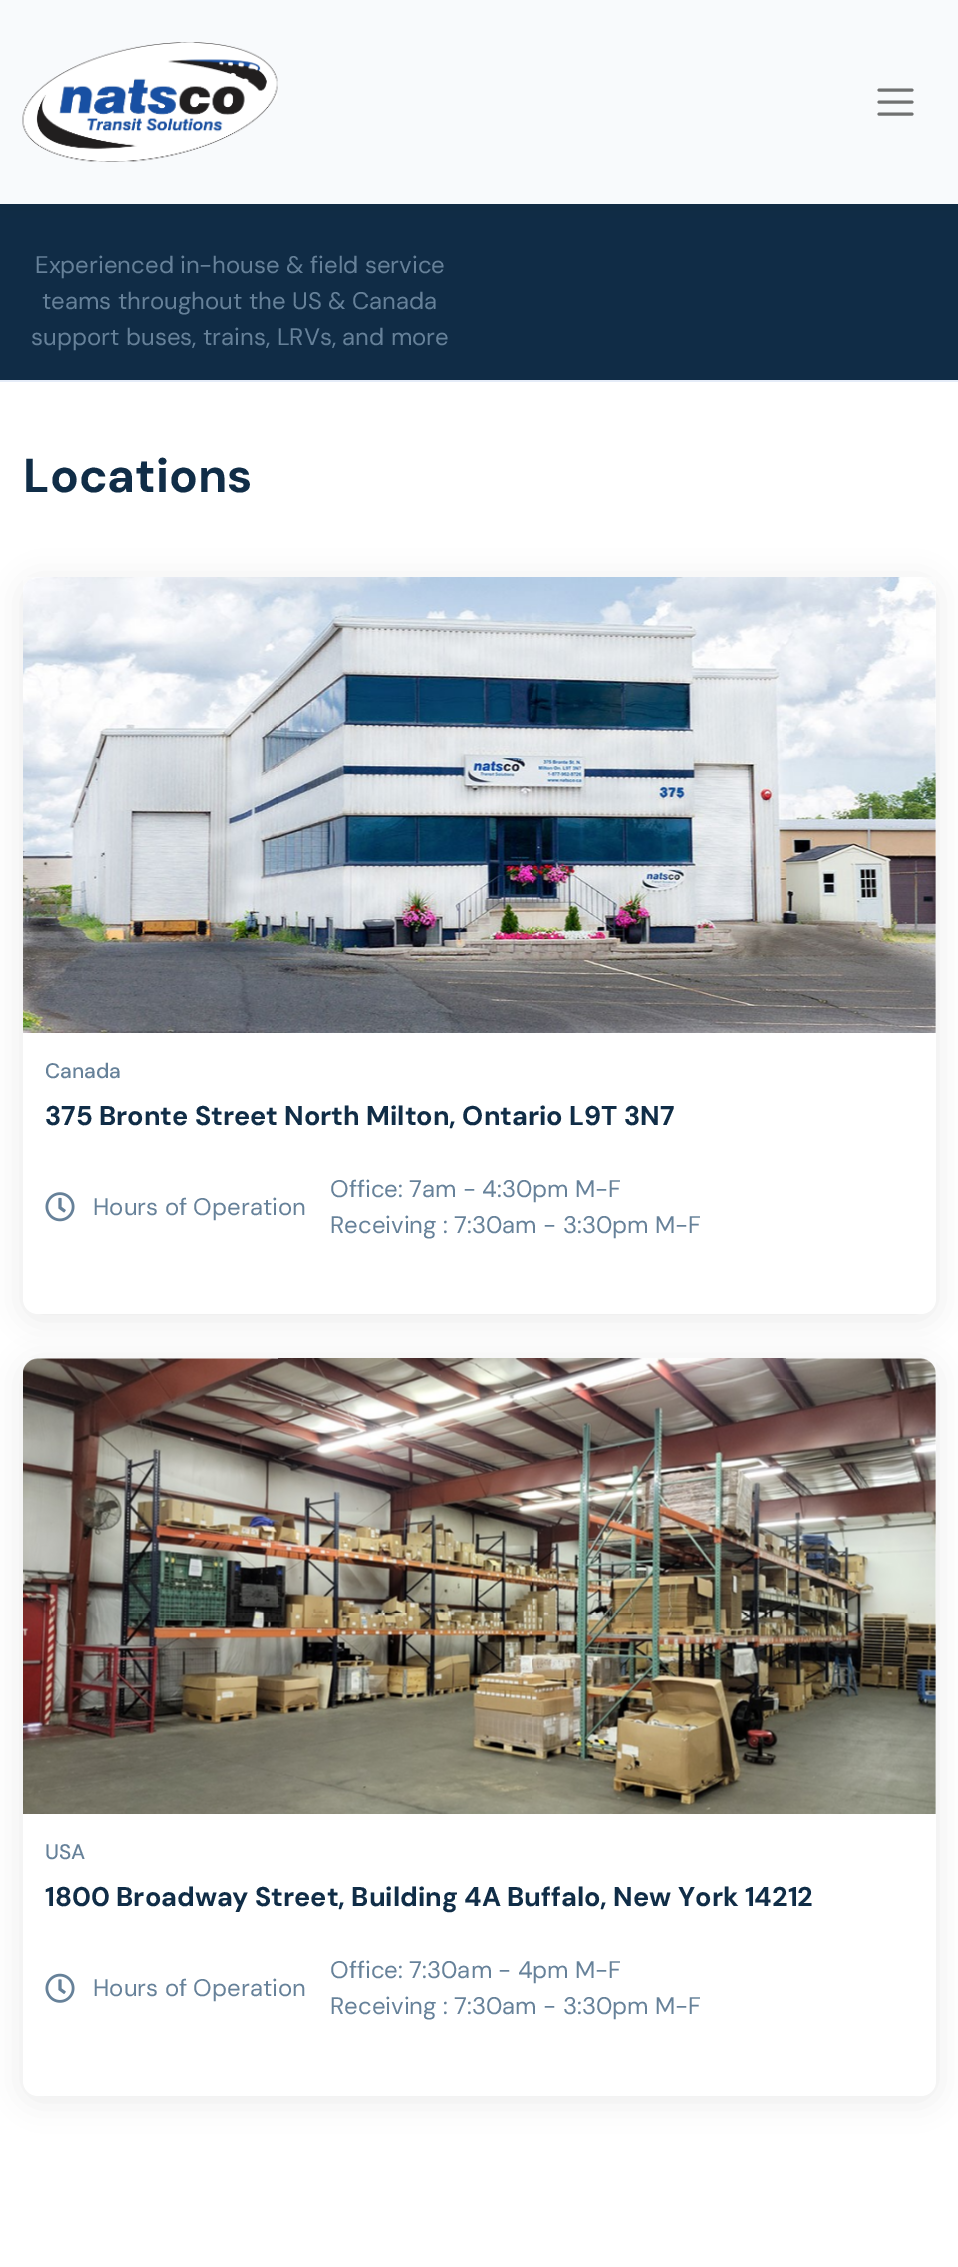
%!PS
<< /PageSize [958 2267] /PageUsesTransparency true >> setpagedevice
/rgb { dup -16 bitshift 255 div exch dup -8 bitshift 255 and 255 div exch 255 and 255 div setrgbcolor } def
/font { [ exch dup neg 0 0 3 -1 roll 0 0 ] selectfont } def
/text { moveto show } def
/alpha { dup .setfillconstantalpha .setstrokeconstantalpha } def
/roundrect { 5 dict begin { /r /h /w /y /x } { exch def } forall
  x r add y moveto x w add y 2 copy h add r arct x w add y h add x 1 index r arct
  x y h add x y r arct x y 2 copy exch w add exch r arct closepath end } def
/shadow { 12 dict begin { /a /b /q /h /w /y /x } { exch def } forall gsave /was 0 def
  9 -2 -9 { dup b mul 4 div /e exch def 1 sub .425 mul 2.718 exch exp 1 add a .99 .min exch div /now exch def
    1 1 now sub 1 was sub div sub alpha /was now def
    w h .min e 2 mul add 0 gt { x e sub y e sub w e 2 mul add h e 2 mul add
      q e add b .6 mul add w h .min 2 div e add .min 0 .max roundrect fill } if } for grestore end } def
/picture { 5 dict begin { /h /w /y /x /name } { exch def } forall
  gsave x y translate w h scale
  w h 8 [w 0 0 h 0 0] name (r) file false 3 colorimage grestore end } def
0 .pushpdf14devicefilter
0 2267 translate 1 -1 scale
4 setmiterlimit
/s1 { /DMSans-Regular 24 font 16#668199 rgb } def
/s2 { /DMSans-Bold 47.5 font 16#102D47 rgb } def
/s3 { /DMSans-Medium 21 font 16#668199 rgb } def
/s4 { /DMSans-Bold 27 font 16#102D47 rgb } def
16#FFFFFF rgb
0 0 958 2267 rectfill
16#102C46 rgb
0 204 958 176 rectfill
16#000000 rgb
0 3 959 204 0 15 0.05 shadow
16#F8FAFC rgb
0 0 958 204 rectfill
(pic1.raw) 22 42 256 120 picture
16#707171 rgb
3 setlinewidth
1 setlinecap
879 90 moveto 912 90 lineto 879 102 moveto 912 102 lineto 879 114 moveto 912 114 lineto stroke
s1
(Experienced in-house & field service) 35 273 text
(teams throughout the US & Canada) 42 309 text
(support buses, trains, LRVs, and more) 31 345 text
16#E5ECF8 rgb
0 380 958 2 rectfill
s2
(Locations) 23 492 text
16#000000 rgb
23 582 913 737 15 15 0.08 shadow
16#FFFFFF rgb
23 578 913 736 15 roundrect fill
(pic2.raw) 23 577 913 456 picture
s3
(Canada) 45 1078 text
s4
(375 Bronte Street North Milton, Ontario L9T 3N7) 45 1125 text
(pic3.raw) 45 1192 30 30 picture
s1
(Hours of Operation) 93 1215 text
(Office: 7am - 4:30pm M-F) 330 1197 text
(Receiving : 7:30am - 3:30pm M-F) 330 1233 text
16#000000 rgb
23 1364 913 736 15 15 0.08 shadow
16#FFFFFF rgb
23 1359 913 737 15 roundrect fill
(pic4.raw) 23 1358 913 456 picture
s3
(USA) 45 1859 text
s4
(1800 Broadway Street, Building 4A Buffalo, New York 14212) 45 1906 text
(pic5.raw) 45 1973 30 30 picture
s1
(Hours of Operation) 93 1996 text
(Office: 7:30am - 4pm M-F) 330 1978 text
(Receiving : 7:30am - 3:30pm M-F) 330 2014 text
.poppdf14devicefilter showpage
